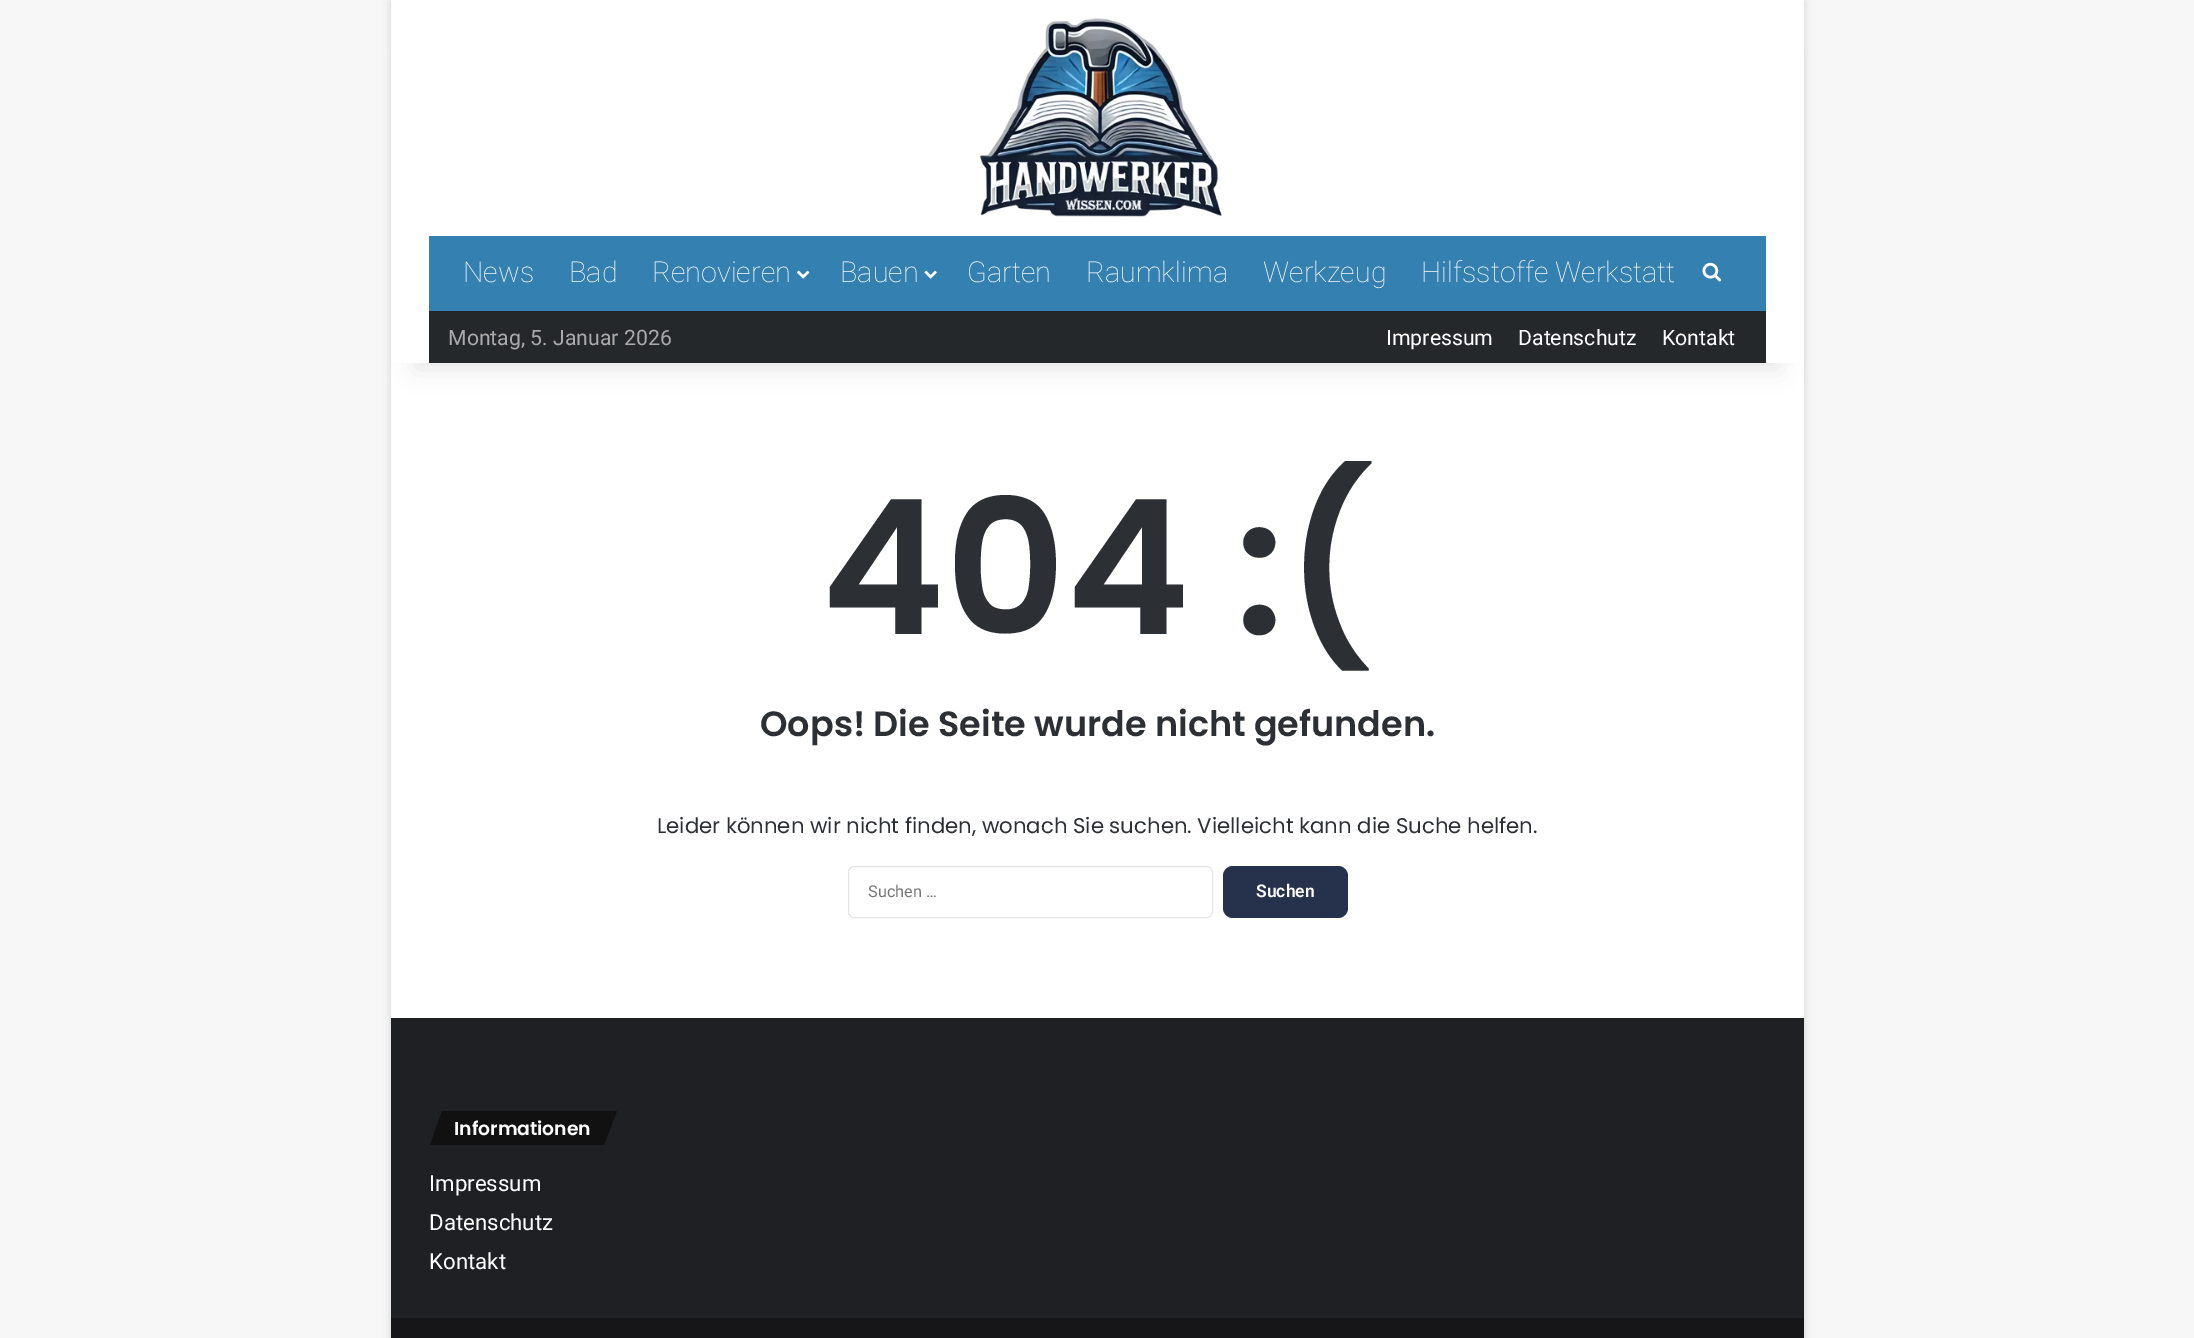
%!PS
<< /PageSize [2194 1338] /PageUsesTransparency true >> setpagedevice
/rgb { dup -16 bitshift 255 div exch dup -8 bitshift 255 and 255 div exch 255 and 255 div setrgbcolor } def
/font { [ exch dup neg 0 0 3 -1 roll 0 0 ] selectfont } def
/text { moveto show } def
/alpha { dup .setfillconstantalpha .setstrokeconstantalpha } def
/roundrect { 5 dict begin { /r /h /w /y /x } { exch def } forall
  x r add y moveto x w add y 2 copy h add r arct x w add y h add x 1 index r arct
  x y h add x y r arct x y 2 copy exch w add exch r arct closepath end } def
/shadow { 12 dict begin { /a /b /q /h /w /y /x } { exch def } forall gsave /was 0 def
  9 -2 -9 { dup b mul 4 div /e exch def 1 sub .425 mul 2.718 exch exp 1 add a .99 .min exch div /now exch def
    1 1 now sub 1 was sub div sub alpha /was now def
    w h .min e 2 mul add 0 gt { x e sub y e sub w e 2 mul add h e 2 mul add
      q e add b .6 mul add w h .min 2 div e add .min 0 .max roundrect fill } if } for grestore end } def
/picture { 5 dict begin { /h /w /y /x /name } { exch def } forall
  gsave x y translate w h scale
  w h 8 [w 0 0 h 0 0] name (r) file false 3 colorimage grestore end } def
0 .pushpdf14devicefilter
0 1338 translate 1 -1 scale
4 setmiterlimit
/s1 { /Roboto-Thin 28.75 font 16#FFFFFF rgb } def
/s2 { /Roboto-Regular 21.25 font 16#AAAAAA rgb } def
/s3 { /Roboto-Regular 21.25 font 16#FFFFFF rgb } def
/s4 { /Poppins-SemiBold 187.5 font 16#2C2F34 rgb } def
/s5 { /Poppins-SemiBold 35 font 16#2C2F34 rgb } def
/s6 { /Poppins-Regular 21.25 font 16#2C2F34 rgb } def
/s7 { /Roboto-Regular 16.25 font 16#757575 rgb } def
/s8 { /Roboto-SemiBold 17.5 font 16#FFFFFF rgb } def
/s9 { /Poppins-SemiBold 18.75 font 16#FFFFFF rgb } def
/s10 { /Roboto-Regular 22.25 font 16#FFFFFF rgb } def
16#F7F7F7 rgb
0 0 2194 1338 rectfill
16#ABABAB rgb
391 1 1413 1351 0 4.5 0.5 shadow
16#FFFFFF rgb
391 363 1413 655 rectfill
16#000000 rgb
416 56 1363 313 0 12.5 0.1 shadow
16#FFFFFF rgb
391 0 1413 363 rectfill
(pic1.raw) 980 18 242 199 picture
16#3480B1 rgb
429 236 1337 75 rectfill
s1
(News) 463 282 text
(Bad) 569 282 text
(Renovieren) 652 282 text
(pic2.raw) 797 270 13 9 picture
(Bauen) 840 282 text
(pic3.raw) 924 270 13 9 picture
(Garten) 967 282 text
(Raumklima) 1086 282 text
(Werkzeug) 1263 282 text
(Hilfsstoffe Werkstatt) 1421 282 text
(pic4.raw) 1702 262 19 20 picture
16#25282B rgb
429 312 1337 51 rectfill
16#212427 rgb
429 311 1337 1 rectfill
s2
(Montag, 5. Januar 2026) 448 345 text
s3
(Impressum) 1386 345 text
(Datenschutz) 1518 345 text
(Kontakt) 1662 345 text
s4
(404 :\() 821 634 text
s5
(Oops! Die Seite wurde nicht gefunden.) 760 736 text
s6
(Leider können wir nicht finden, wonach Sie suchen. Vielleicht kann die Suche helfen.) 657 833 text
16#E6E6E6 rgb
848.5 866.5 364 51 5.5 roundrect stroke
s7
(Suchen …) 868 897 text
16#26314C rgb
1223 866 125 52 10 roundrect fill
s8
(Suchen) 1256 897 text
16#1F2024 rgb
391 1018 1413 300 rectfill
16#111111 rgb
442 1111 moveto 617 1111 lineto 604 1145 lineto 430 1145 lineto closepath fill
s9
(Informationen) 454 1135 text
s10
(Impressum) 429 1191 text
(Datenschutz) 429 1230 text
(Kontakt) 429 1269 text
16#161619 rgb
391 1318 1413 20 rectfill
.poppdf14devicefilter showpage
